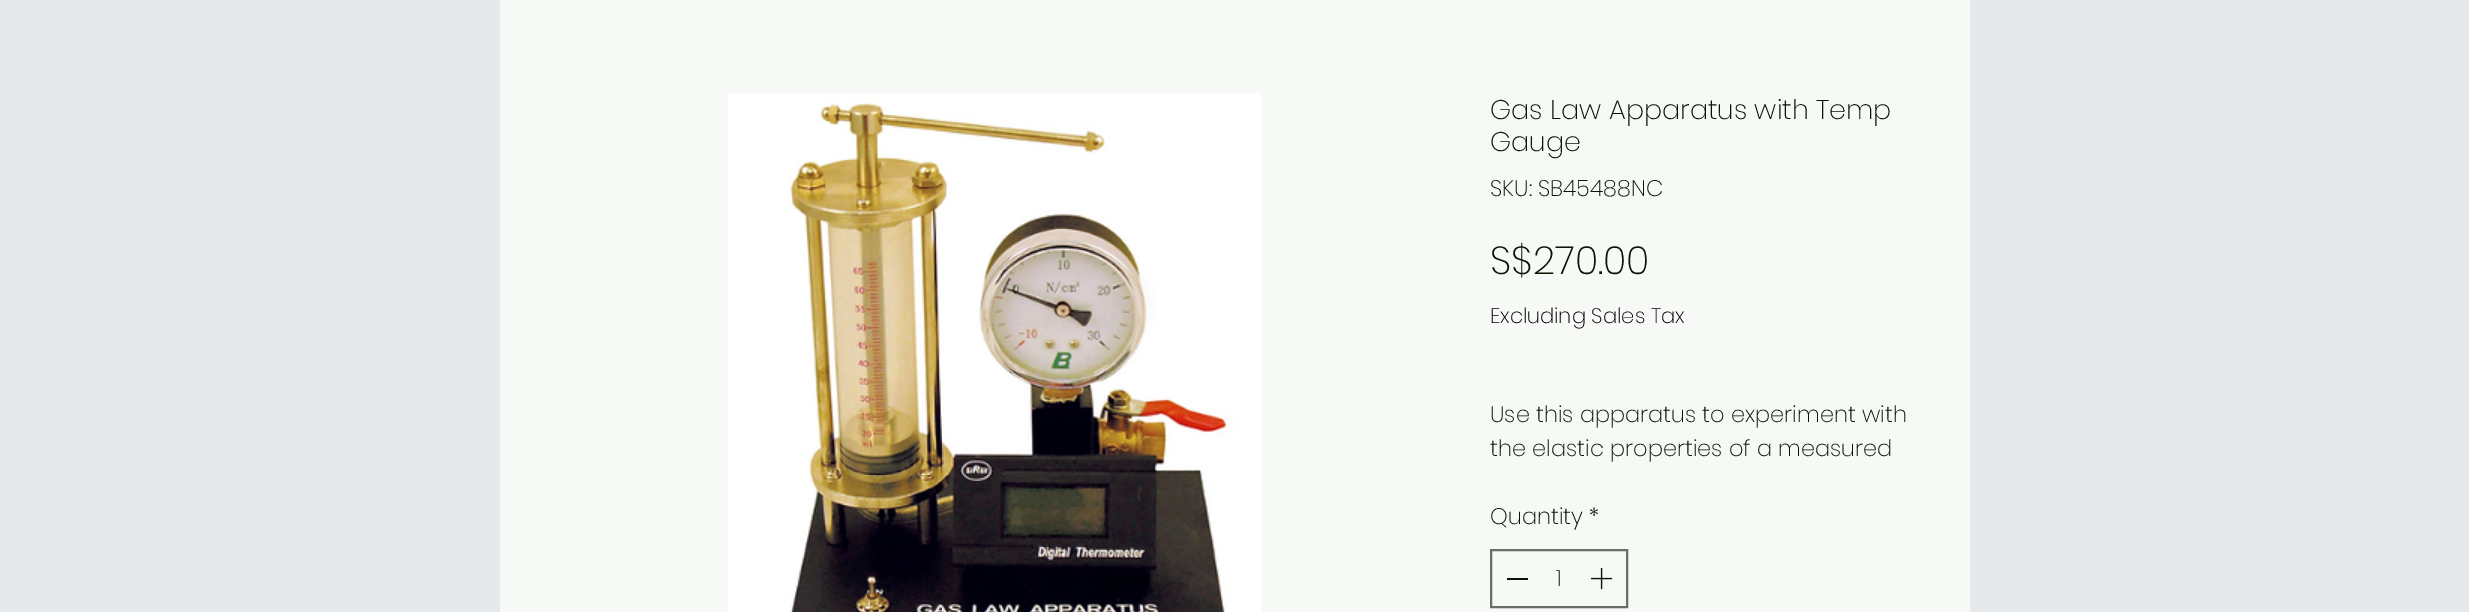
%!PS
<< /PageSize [2469 612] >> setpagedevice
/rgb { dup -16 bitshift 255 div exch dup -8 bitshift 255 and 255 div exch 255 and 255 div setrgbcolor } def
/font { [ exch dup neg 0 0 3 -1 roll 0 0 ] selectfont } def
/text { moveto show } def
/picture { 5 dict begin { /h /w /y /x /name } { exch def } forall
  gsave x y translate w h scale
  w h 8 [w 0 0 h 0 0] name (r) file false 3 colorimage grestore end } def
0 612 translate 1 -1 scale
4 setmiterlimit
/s1 { /Poppins-ExtraLight 27 font 16#091405 rgb } def
/s2 { /Poppins-ExtraLight 22.5 font 16#091405 rgb } def
/s3 { /Poppins-ExtraLight 39 font 16#091405 rgb } def
/s4 { /Poppins-ExtraLight 21 font 16#000000 rgb } def
16#E6E9EB rgb
0 0 2469 612 rectfill
16#F6F9F5 rgb
500 0 1470 612 rectfill
(pic1.raw) 727 93 535 519 picture
s1
(Gas Law Apparatus with Temp) 1490 119 text
(Gauge) 1490 151 text
s2
(SKU: SB45488NC) 1490 196 text
s3
(S$270.00) 1490 274 text
s4
(Excluding Sales Tax) 1490 323 text
s2
(Use this apparatus to experiment with) 1490 422 text
(the elastic properties of a measured) 1490 456 text
(Quantity *) 1490 524 text
16#687065 rgb
2 setlinewidth
1491 550 136 57 rectstroke
16#091405 rgb
1507 578 21 2 rectfill
(1) 1556 586 text
(pic2.raw) 1591 568 22 22 picture
showpage
